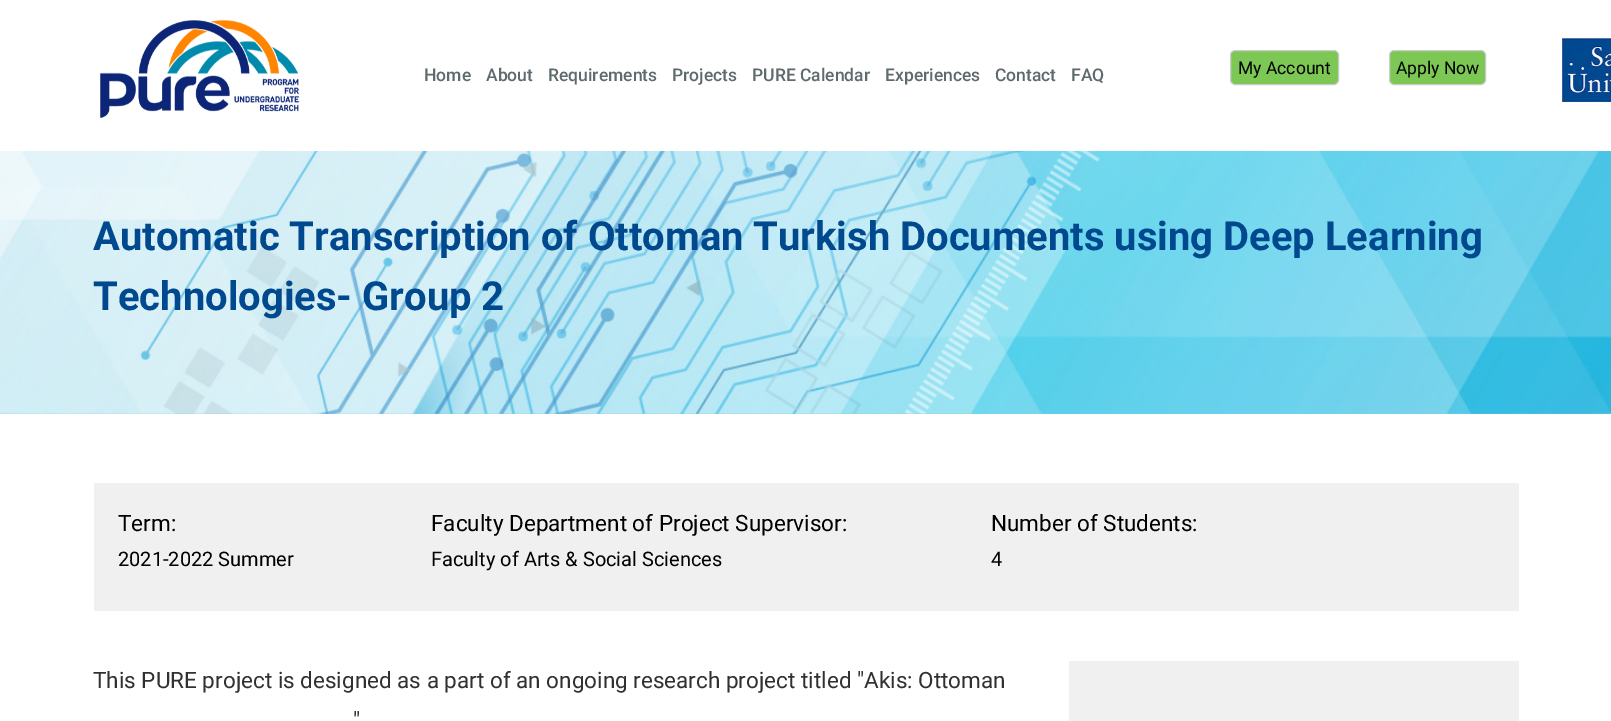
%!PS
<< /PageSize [1611 721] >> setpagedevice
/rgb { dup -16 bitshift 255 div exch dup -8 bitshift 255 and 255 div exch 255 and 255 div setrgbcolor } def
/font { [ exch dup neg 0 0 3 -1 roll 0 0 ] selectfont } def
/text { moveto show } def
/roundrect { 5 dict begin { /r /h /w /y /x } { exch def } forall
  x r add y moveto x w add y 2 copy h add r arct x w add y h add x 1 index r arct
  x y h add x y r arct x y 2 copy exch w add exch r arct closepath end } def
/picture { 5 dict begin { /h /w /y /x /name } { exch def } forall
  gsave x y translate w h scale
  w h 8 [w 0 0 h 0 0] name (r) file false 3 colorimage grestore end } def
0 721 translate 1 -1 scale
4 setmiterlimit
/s1 { /Roboto-Medium 17.5 font 16#5E6A6E rgb } def
/s2 { /Roboto-Regular 17.5 font 16#000000 rgb } def
/s3 { /Roboto-Bold 40 font 16#00498E rgb } def
/s4 { /Roboto-Regular 22.5 font 16#000000 rgb } def
/s5 { /Roboto-Regular 20 font 16#000000 rgb } def
/s6 { /Roboto-Regular 22.5 font 16#313131 rgb } def
16#FFFFFF rgb
0 0 1611 721 rectfill
(pic1.raw) 100 20 200 98 picture
s1
(Home) 424 81 text
(About) 486 81 text
(Requirements) 548 81 text
(Projects) 672 81 text
(PURE Calendar) 752 81 text
(Experiences) 885 81 text
(Contact) 995 81 text
(FAQ) 1071 81 text
16#7DC855 rgb
1230.5 50.5 108 34 4.5 roundrect gsave fill grestore
16#CCCCCC rgb
stroke
s2
(My Account) 1238 74 text
16#7DC855 rgb
1389.5 50.5 96 34 4.5 roundrect gsave fill grestore
16#CCCCCC rgb
stroke
s2
(Apply Now) 1396 74 text
(pic2.raw) 1561 38 50 65 picture
(pic3.raw) 0 151 1611 263 picture
s3
(Automatic Transcription of Ottoman Turkish Documents using Deep Learning) 93 250 text
(Technologies- Group 2) 93 310 text
16#F0F0F0 rgb
94 483 1425 128 rectfill
s4
(Term:) 118 531 text
s5
(2021-2022 Summer) 118 566 text
s4
(Faculty Department of Project Supervisor:) 431 531 text
s5
(Faculty of Arts & Social Sciences) 431 566 text
s4
(Number of Students:) 991 531 text
s5
(4) 991 566 text
s6
(This PURE project is designed as a part of an ongoing research project titled "Akis: Ottoman) 93 688 text
(") 353 728 text
16#F0F0F0 rgb
1069 661 450 60 rectfill
showpage
